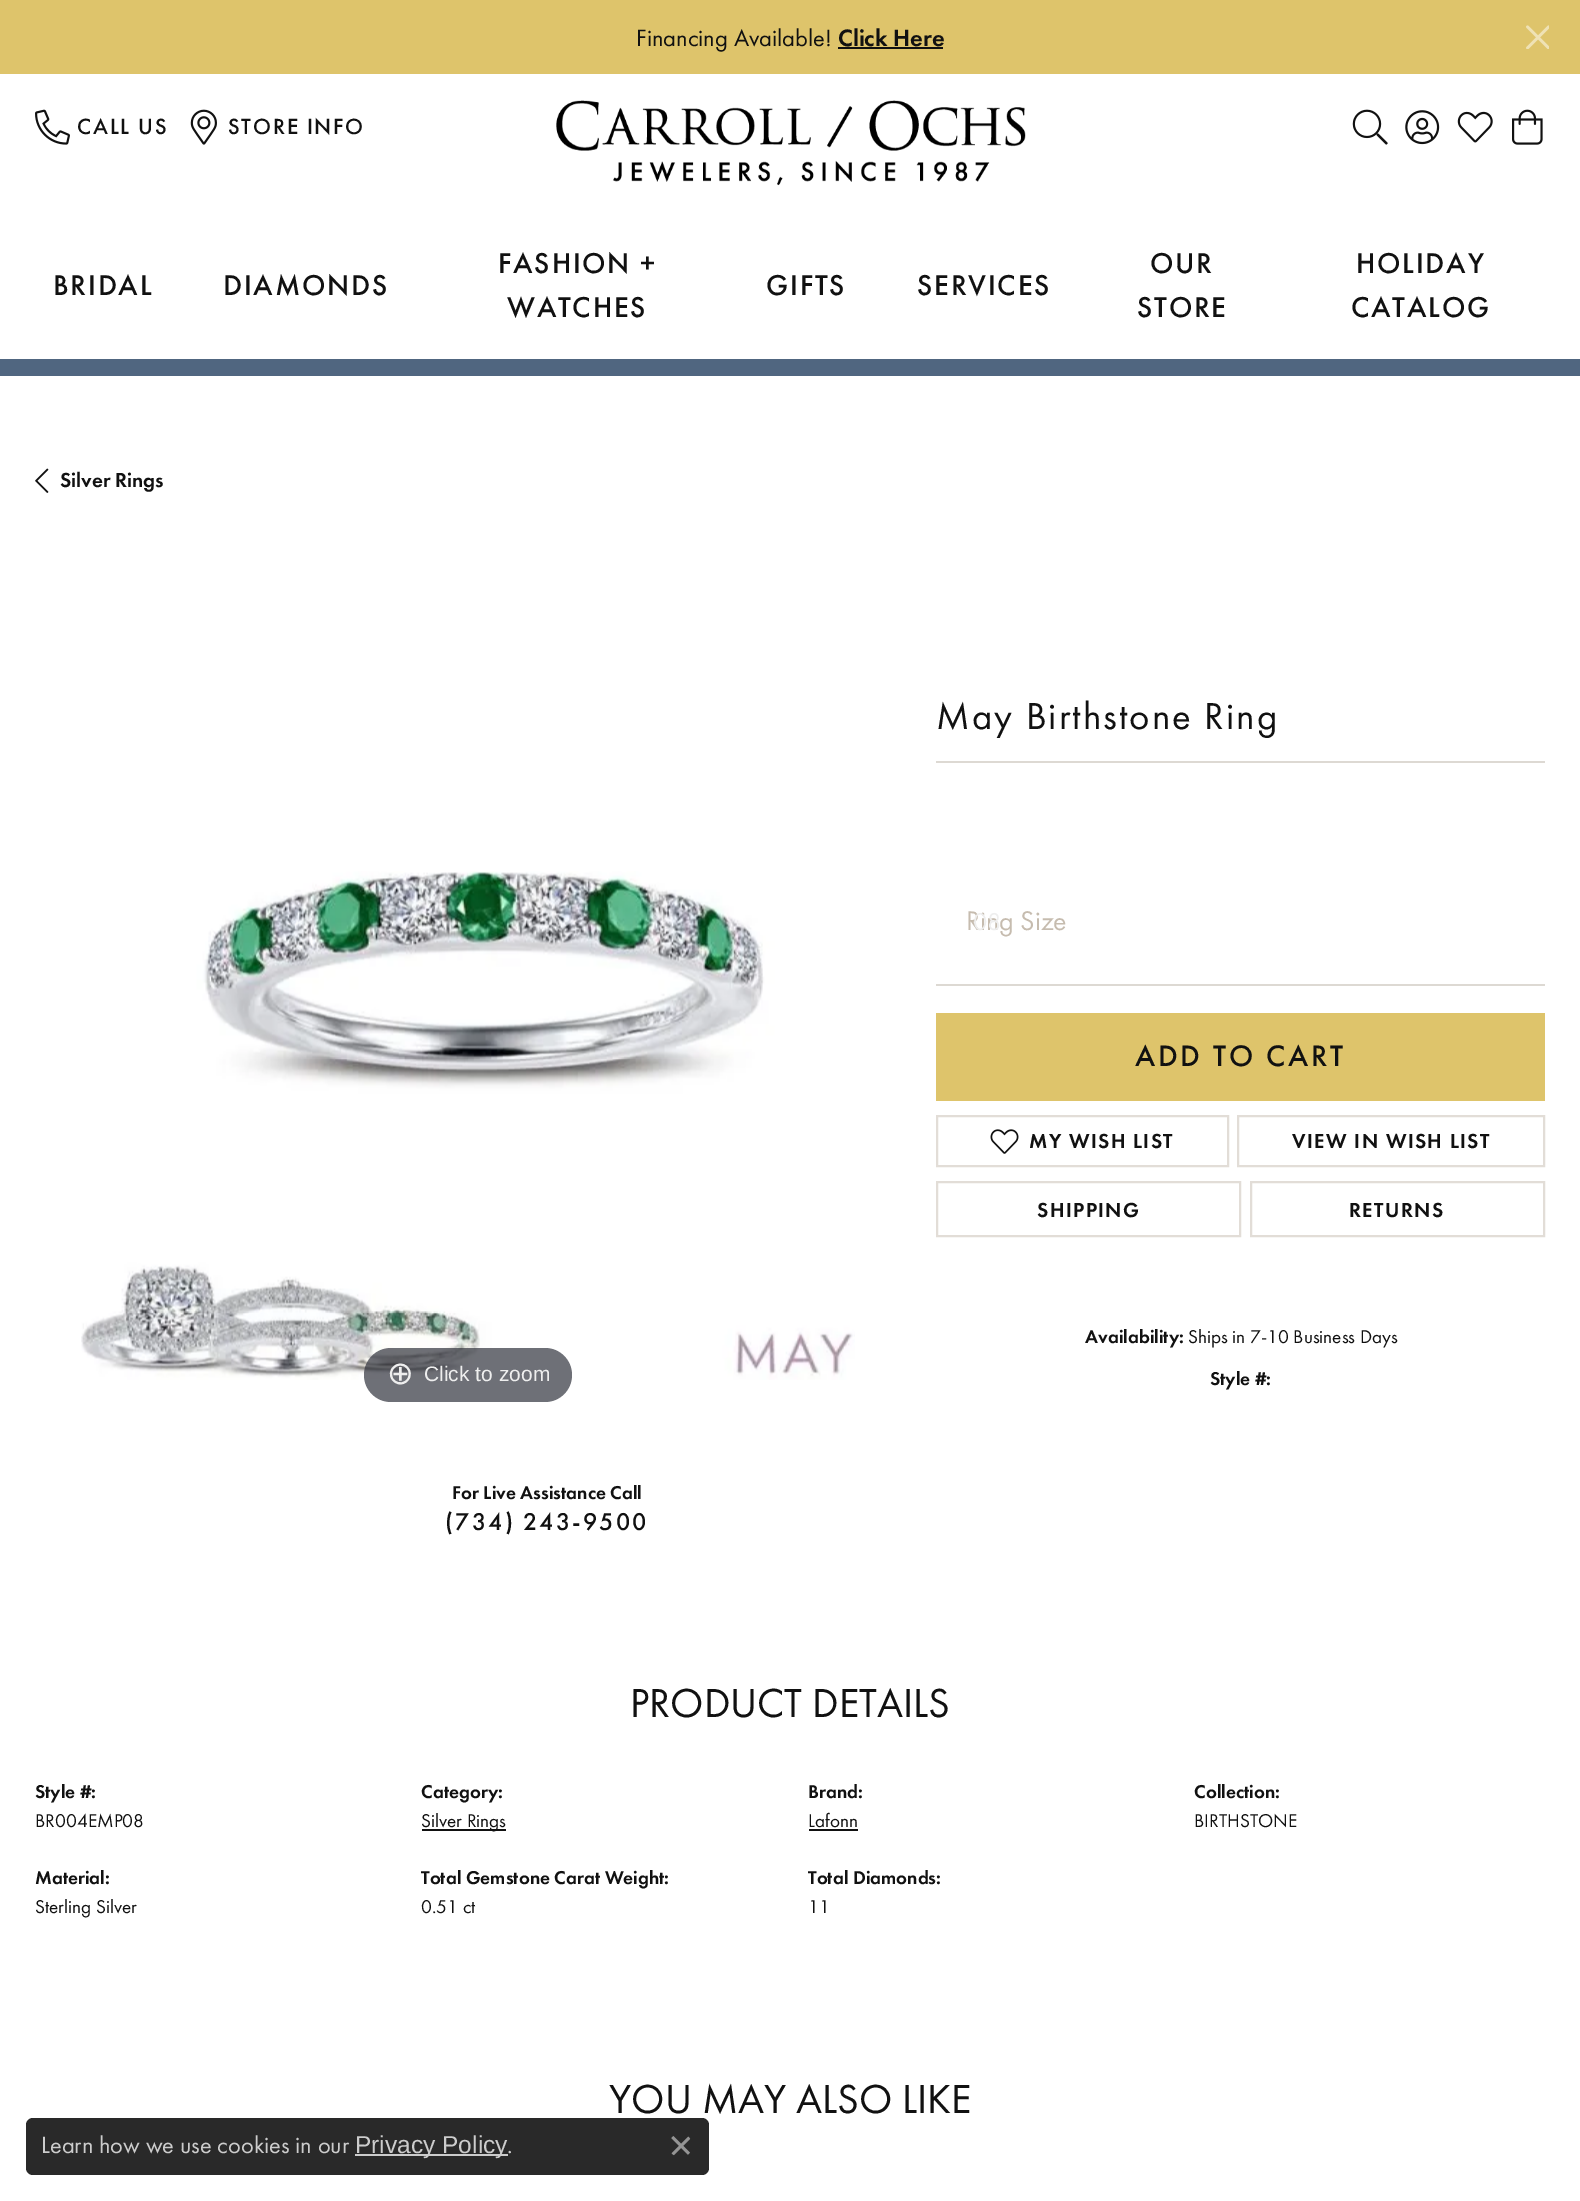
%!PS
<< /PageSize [1580 2201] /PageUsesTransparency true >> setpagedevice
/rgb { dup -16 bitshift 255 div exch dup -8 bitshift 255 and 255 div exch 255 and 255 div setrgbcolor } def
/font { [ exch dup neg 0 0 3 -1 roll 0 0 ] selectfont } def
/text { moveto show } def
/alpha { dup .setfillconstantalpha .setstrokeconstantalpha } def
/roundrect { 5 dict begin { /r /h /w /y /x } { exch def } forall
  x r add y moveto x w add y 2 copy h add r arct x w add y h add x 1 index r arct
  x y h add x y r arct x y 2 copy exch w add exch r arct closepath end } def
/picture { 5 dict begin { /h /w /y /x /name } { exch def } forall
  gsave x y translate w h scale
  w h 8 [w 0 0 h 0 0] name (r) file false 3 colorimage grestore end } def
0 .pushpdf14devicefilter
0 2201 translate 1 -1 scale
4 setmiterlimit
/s1 { /FuturaPT-Regular 24.5 font 16#111111 rgb } def
/s2 { /FuturaPT-Medium 24.5 font 16#111111 rgb } def
/s3 { /FuturaPT-Medium 21 font 16#111111 rgb } def
/s4 { /FuturaPT-Regular 28 font 16#C6BCAF rgb } def
/s5 { /FuturaPT-Regular 25.25 font 16#EEEEEE rgb } def
/s6 { /FuturaPT-Medium 19.25 font 16#111111 rgb } def
/s7 { /FuturaPT-Regular 19.25 font 16#111111 rgb } def
/s8 { /DejaVuSans-Regular 32 font 16#EEEEEE rgb } def
/s9 { /LiberationSans-Regular 21 font 16#EEEEEE rgb } def
/s10 { /FuturaPT-Regular 42 font 16#111111 rgb } def
/s11 { /FuturaPT-Regular 24.5 font 16#CCCCCC rgb } def
/s12 { /LiberationSans-Regular 24.5 font 16#CCCCCC rgb } def
16#DEC46B rgb
0 0 1580 2201 rectfill
s1
(Financing Available!) 636 46 text
s2
(Click Here) 838 46 text
838 47 105 2 rectfill
(pic1.raw) 1526 25 23 24 picture
16#FFFFFF rgb
0 74 1580 2127 rectfill
(pic2.raw) 35 109 35 36 picture
/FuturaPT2-Medium 22.75 font
16#111111 rgb
77 134 moveto 1.75 0 (CALL US) ashow
(pic3.raw) 190 109 27 36 picture
228 134 moveto 1.75 0 (STORE INFO) ashow
(pic4.raw) 1352 109 36 36 picture
(pic5.raw) 1405 110 35 35 picture
(pic6.raw) 1457 111 36 32 picture
(pic7.raw) 1512 109 31 36 picture
(pic8.raw) 556 100 470 86 picture
16#506680 rgb
0 359 1580 17 rectfill
/FuturaPT2-Medium 29.75 font
16#111111 rgb
53 295 moveto 1.75 0 (BRIDAL) ashow
223 295 moveto 1.75 0 (DIAMONDS) ashow
498 273 moveto 1.75 0 (FASHION +) ashow
507 317 moveto 1.75 0 (WATCHES) ashow
766 295 moveto 1.75 0 (GIFTS) ashow
917 295 moveto 1.75 0 (SERVICES) ashow
1150 273 moveto 1.75 0 (OUR) ashow
1137 317 moveto 1.75 0 (STORE) ashow
1356 273 moveto 1.75 0 (HOLIDAY) ashow
1351 317 moveto 1.75 0 (CATALOG) ashow
(pic9.raw) 35 468 14 25 picture
s3
(Silver Rings) 60 487 text
/FuturaPT-Regular 39 font
936 729 moveto 2.1 0 (May Birthstone Ring) ashow
16#DDD9D3 rgb
936 761 609 2 rectfill
s4
(Ring Size) 966 930 text
s5
(08) 973 930 text
16#DDD9D3 rgb
936 984 609 2 rectfill
16#DEC46B rgb
936 1013 609 88 rectfill
/FuturaPT2-Medium 30.75 font
16#111111 rgb
1135 1066 moveto 2.75 0 (ADD TO CART) ashow
16#E2DDD7 rgb
2 setlinewidth
937 1116 291 50 rectstroke
(pic10.raw) 990 1129 29 25 picture
/FuturaPT-Medium 21 font
16#111111 rgb
1029 1148 moveto 1.4 0 (MY WISH LIST) ashow
16#E2DDD7 rgb
1238 1116 306 50 rectstroke
16#111111 rgb
1292 1148 moveto 1.4 0 (VIEW IN WISH LIST) ashow
16#E2DDD7 rgb
937 1182 303 54 rectstroke
16#111111 rgb
1037 1217 moveto 1.4 0 (SHIPPING) ashow
16#E2DDD7 rgb
1251 1182 293 54 rectstroke
16#111111 rgb
1349 1217 moveto 1.4 0 (RETURNS) ashow
s6
(Availability:) 1085 1343 text
s7
(Ships in 7-10 Business Days) 1188 1343 text
s6
(Style #:) 1210 1385 text
(pic11.raw) 81 871 774 509 picture
0.7 alpha
16#31333D rgb
364 1348 208 54 27 roundrect fill
1 alpha
s8
(⊕) 387 1384 text
s9
(Click to zoom) 424 1381 text
s6
(For Live Assistance Call) 452 1499 text
/FuturaPT2-Medium 25.25 font
445 1530 moveto 2.1 0 (\(734\) 243-9500) ashow
s10
(PRODUCT DETAILS) 630 1717 text
s6
(Style #:) 35 1798 text
s7
(BR004EMP08) 35 1827 text
s6
(Material:) 35 1884 text
s7
(Sterling Silver) 35 1913 text
s6
(Category:) 421 1798 text
422 1829 84 2 rectfill
s7
(Silver Rings) 421 1827 text
s6
(Total Gemstone Carat Weight:) 421 1884 text
s7
(0.51 ct) 421 1913 text
s6
(Brand:) 808 1798 text
s7
(Lafonn) 808 1827 text
809 1829 49 2 rectfill
s6
(Total Diamonds:) 808 1884 text
s7
(11) 808 1913 text
s6
(Collection:) 1194 1798 text
s7
(BIRTHSTONE) 1194 1827 text
s10
(YOU MAY ALSO LIKE) 609 2113 text
16#292929 rgb
26 2118 683 57 7 roundrect fill
s11
(Learn how we use cookies in our) 41 2153 text
355 2154 153 2 rectfill
s12
(Privacy Policy) 355 2153 text
s11
(.) 507 2153 text
(pic12.raw) 671 2136 20 20 picture
.poppdf14devicefilter showpage
